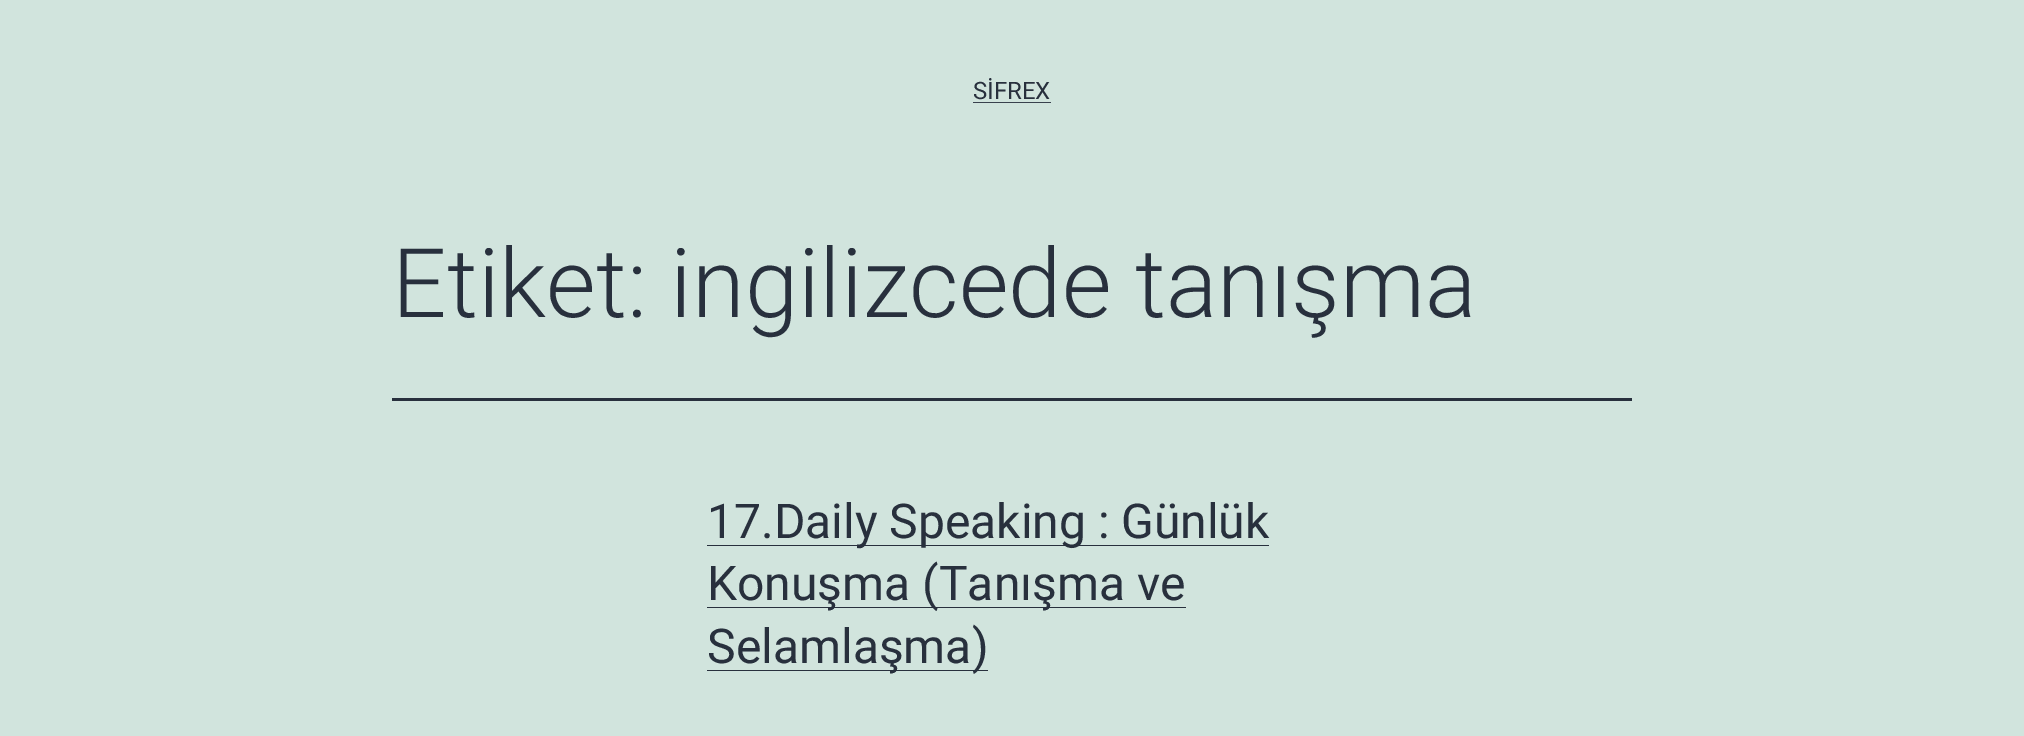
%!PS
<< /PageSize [2024 736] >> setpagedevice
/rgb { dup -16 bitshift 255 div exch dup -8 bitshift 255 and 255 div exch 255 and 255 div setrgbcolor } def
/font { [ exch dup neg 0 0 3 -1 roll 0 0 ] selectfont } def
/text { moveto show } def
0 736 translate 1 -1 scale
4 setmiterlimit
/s1 { /Roboto-Regular 24 font 16#28303D rgb } def
/s2 { /Roboto-Light 96 font 16#28303D rgb } def
/s3 { /Roboto-Regular 48 font 16#28303D rgb } def
16#D1E4DD rgb
0 0 2024 736 rectfill
s1
(SİFREX) 973 99 text
16#39414D rgb
973 102 78 1 rectfill
16#28303D rgb
392 398 1240 3 rectfill
s2
(Etiket: ingilizcede tanışma) 392 317 text
707 545 562 1 rectfill
s3
(17.Daily Speaking : Günlük) 707 538 text
707 607 479 1 rectfill
(Konuşma \(Tanışma ve) 707 600 text
707 670 281 1 rectfill
(Selamlaşma\)) 707 663 text
showpage
